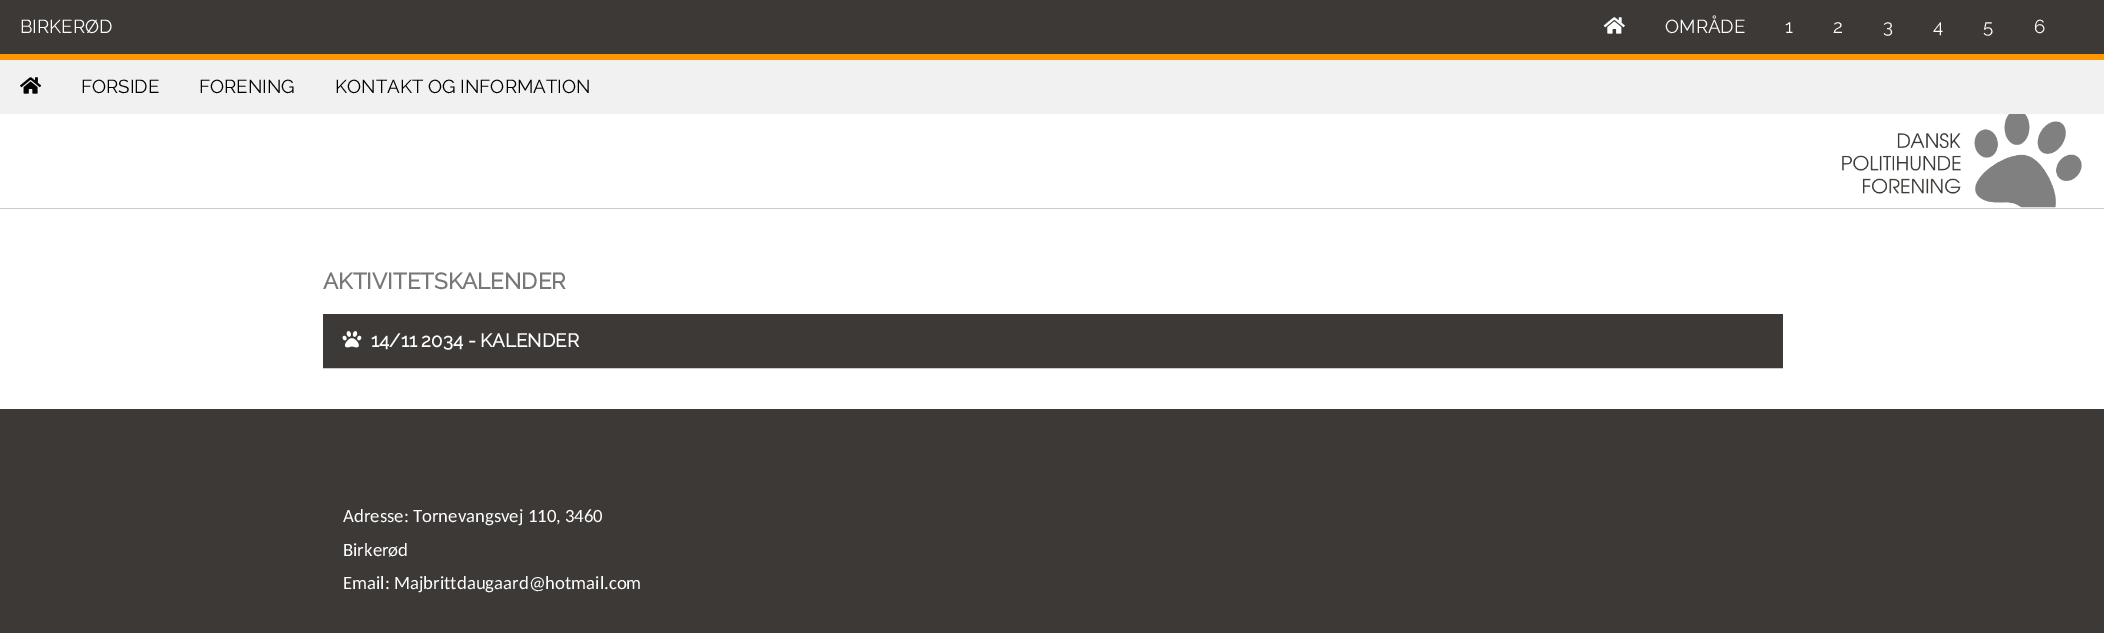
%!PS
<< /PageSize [2104 633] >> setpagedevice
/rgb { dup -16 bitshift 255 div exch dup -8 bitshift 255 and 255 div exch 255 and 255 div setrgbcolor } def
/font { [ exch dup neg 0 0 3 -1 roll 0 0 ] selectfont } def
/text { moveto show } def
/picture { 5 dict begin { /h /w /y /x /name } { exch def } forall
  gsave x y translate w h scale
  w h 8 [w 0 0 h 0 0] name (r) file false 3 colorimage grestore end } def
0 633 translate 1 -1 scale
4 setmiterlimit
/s1 { /Raleway-Thin 18.75 font 16#FFFFFF rgb } def
/s2 { /Raleway-Thin 18.75 font 16#000000 rgb } def
/s3 { /Raleway-Bold 22.5 font 16#777777 rgb } def
/s4 { /Raleway-Bold 18.75 font 16#FFFFFF rgb } def
/s5 { /Carlito-Regular 18.75 font 16#FFFFFF rgb } def
16#FFFFFF rgb
0 0 2104 633 rectfill
16#3D3936 rgb
0 0 2104 54 rectfill
16#FF9800 rgb
0 54 2104 6 rectfill
s1
(BIRKERØD) 20 33 text
(pic1.raw) 1603 17 22 17 picture
(OMRÅDE) 1665 33 text
(1) 1785 33 text
(2) 1833 33 text
(3) 1883 33 text
(4) 1933 33 text
(5) 1983 33 text
(6) 2034 33 text
16#F1F1F1 rgb
0 60 2104 54 rectfill
(pic2.raw) 20 77 22 17 picture
s2
(FORSIDE) 81 93 text
(FORENING) 199 93 text
(KONTAKT OG INFORMATION) 335 93 text
16#CCCCCC rgb
0 208 2104 1 rectfill
(pic3.raw) 1842 114 240 94 picture
s3
(AKTIVITETSKALENDER) 323 289 text
16#3D3936 rgb
323 314 1460 54 rectfill
16#CCCCCC rgb
323 368 1460 1 rectfill
(pic4.raw) 342 331 20 17 picture
s4
(14/11 2034 - KALENDER) 371 347 text
16#3D3936 rgb
0 409 2104 224 rectfill
s5
(Adresse: Tornevangsvej 110, 3460) 343 522 text
(Birkerød) 343 556 text
(Email: Majbrittdaugaard@hotmail.com) 343 589 text
showpage
